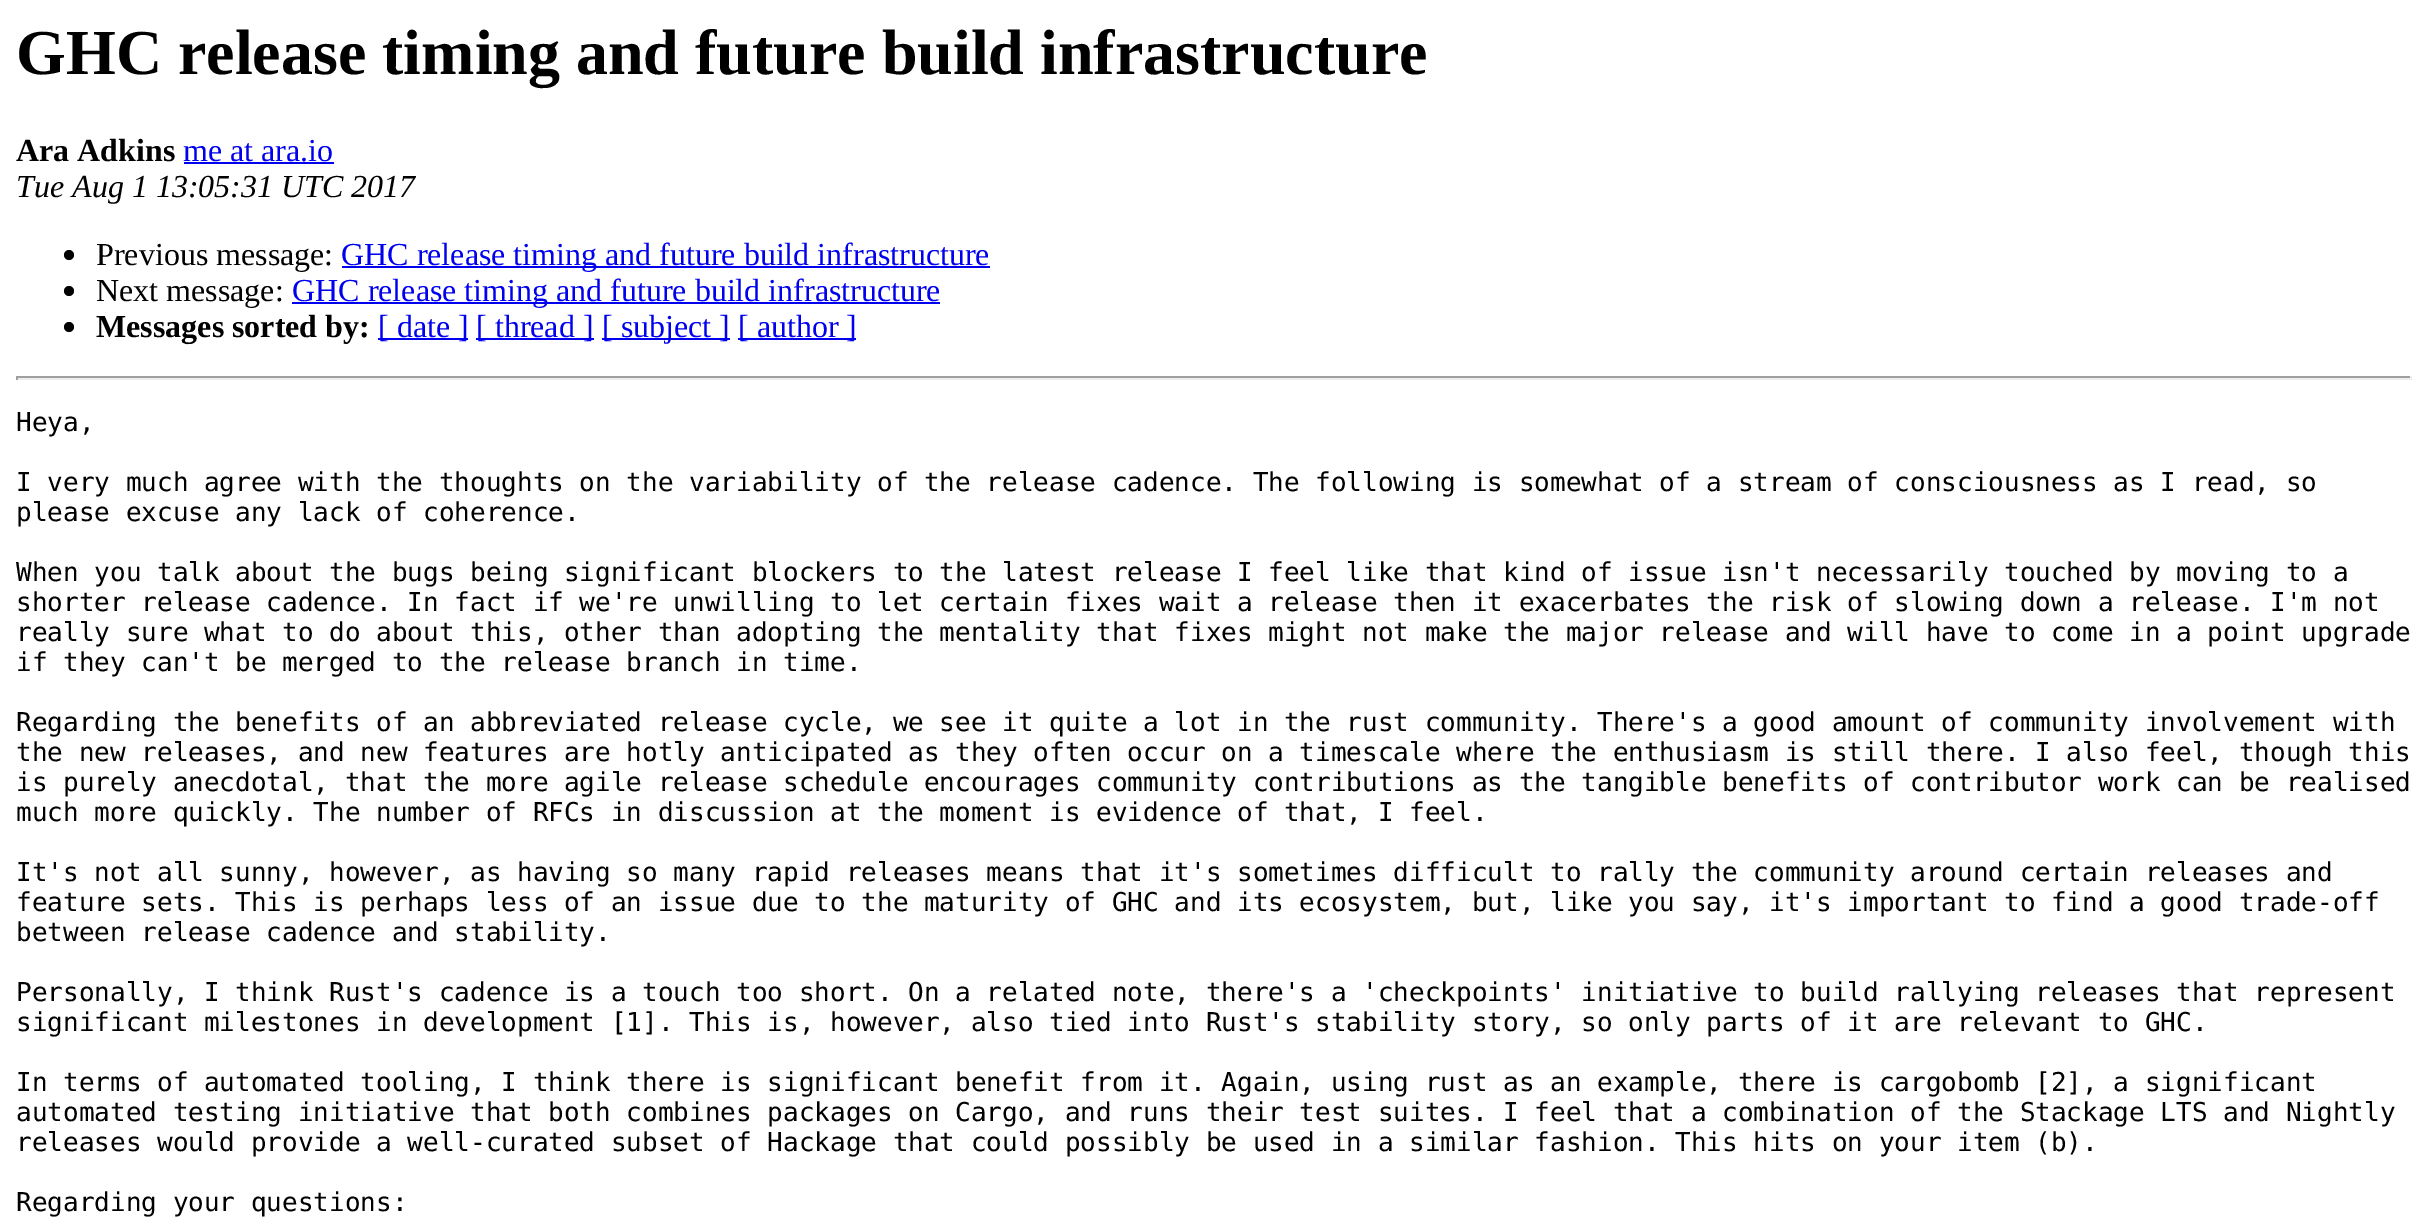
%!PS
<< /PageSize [2428 1223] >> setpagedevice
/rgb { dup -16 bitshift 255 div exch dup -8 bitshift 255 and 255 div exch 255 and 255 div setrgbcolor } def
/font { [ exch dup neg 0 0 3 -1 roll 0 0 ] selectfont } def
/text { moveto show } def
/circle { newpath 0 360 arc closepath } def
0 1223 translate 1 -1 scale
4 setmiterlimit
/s1 { /LiberationSerif-Bold 64 font 16#000000 rgb } def
/s2 { /LiberationSerif-Bold 32 font 16#000000 rgb } def
/s3 { /LiberationSerif-Regular 32 font 16#0000EE rgb } def
/s4 { /LiberationSerif-Italic 32 font 16#000000 rgb } def
/s5 { /LiberationSerif-Regular 32 font 16#000000 rgb } def
/s6 { /DejaVuSansMono-Regular 26 font 16#000000 rgb } def
16#FFFFFF rgb
0 0 2428 1223 rectfill
s1
(GHC release timing and future build infrastructure) 16 74 text
s2
(Ara Adkins) 16 161 text
s3
(me at ara.io) 183 161 text
184 162 150 2 rectfill
s4
(Tue Aug 1 13:05:31 UTC 2017) 16 197 text
69 255 5 circle fill
s5
(Previous message:) 96 265 text
16#0000EE rgb
342 266 648 2 rectfill
(GHC release timing and future build infrastructure) 341 265 text
16#000000 rgb
69 291 5 circle fill
(Next message:) 96 301 text
16#0000EE rgb
292 302 648 2 rectfill
(GHC release timing and future build infrastructure) 292 301 text
16#000000 rgb
69 327 5 circle fill
s2
(Messages sorted by:) 96 337 text
16#0000EE rgb
378 338 90 2 rectfill
s3
([ date ]) 378 337 text
476 338 118 2 rectfill
([ thread ]) 476 337 text
602 338 128 2 rectfill
([ subject ]) 602 337 text
738 338 118 2 rectfill
([ author ]) 738 337 text
16#9F9F9F rgb
16 376 2396 2 rectfill
16#EEEEEE rgb
2410 376 2 4 rectfill
16 378 2396 2 rectfill
16#9F9F9F rgb
16 376 2 4 rectfill
s6
(Heya,) 16 431 text
(I very much agree with the thoughts on the variability of the release cadence. The following is somewhat of a stream of consciousness as I read, so) 16 491 text
(please excuse any lack of coherence.) 16 521 text
(When you talk about the bugs being significant blockers to the latest release I feel like that kind of issue isn't necessarily touched by moving to a) 16 581 text
(shorter release cadence. In fact if we're unwilling to let certain fixes wait a release then it exacerbates the risk of slowing down a release. I'm not) 16 611 text
(really sure what to do about this, other than adopting the mentality that fixes might not make the major release and will have to come in a point upgrade) 16 641 text
(if they can't be merged to the release branch in time.) 16 671 text
(Regarding the benefits of an abbreviated release cycle, we see it quite a lot in the rust community. There's a good amount of community involvement with) 16 731 text
(the new releases, and new features are hotly anticipated as they often occur on a timescale where the enthusiasm is still there. I also feel, though this) 16 761 text
(is purely anecdotal, that the more agile release schedule encourages community contributions as the tangible benefits of contributor work can be realised) 16 791 text
(much more quickly. The number of RFCs in discussion at the moment is evidence of that, I feel.) 16 821 text
(It's not all sunny, however, as having so many rapid releases means that it's sometimes difficult to rally the community around certain releases and) 16 881 text
(feature sets. This is perhaps less of an issue due to the maturity of GHC and its ecosystem, but, like you say, it's important to find a good trade-off) 16 911 text
(between release cadence and stability.) 16 941 text
(Personally, I think Rust's cadence is a touch too short. On a related note, there's a 'checkpoints' initiative to build rallying releases that represent) 16 1001 text
(significant milestones in development [1]. This is, however, also tied into Rust's stability story, so only parts of it are relevant to GHC.) 16 1031 text
(In terms of automated tooling, I think there is significant benefit from it. Again, using rust as an example, there is cargobomb [2], a significant) 16 1091 text
(automated testing initiative that both combines packages on Cargo, and runs their test suites. I feel that a combination of the Stackage LTS and Nightly) 16 1121 text
(releases would provide a well-curated subset of Hackage that could possibly be used in a similar fashion. This hits on your item \(b\).) 16 1151 text
(Regarding your questions:) 16 1211 text
showpage
